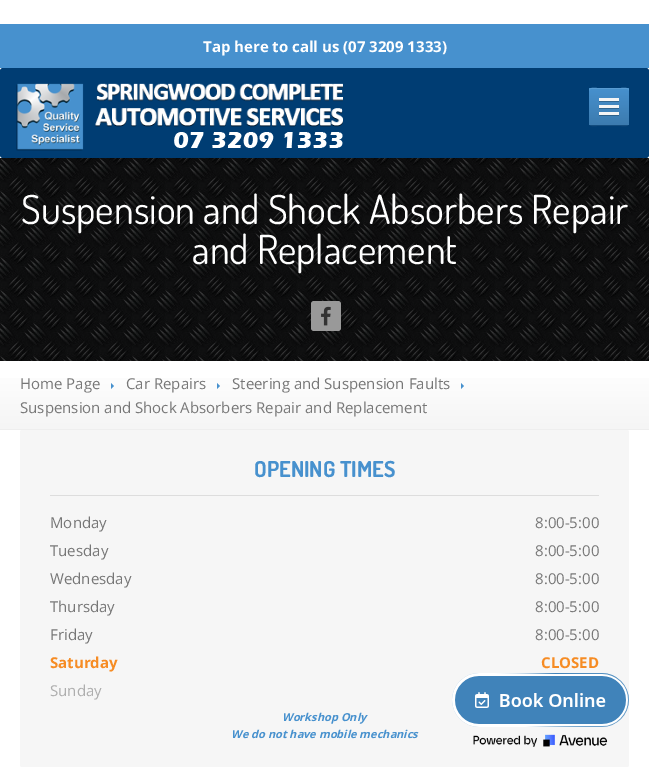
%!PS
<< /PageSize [649 767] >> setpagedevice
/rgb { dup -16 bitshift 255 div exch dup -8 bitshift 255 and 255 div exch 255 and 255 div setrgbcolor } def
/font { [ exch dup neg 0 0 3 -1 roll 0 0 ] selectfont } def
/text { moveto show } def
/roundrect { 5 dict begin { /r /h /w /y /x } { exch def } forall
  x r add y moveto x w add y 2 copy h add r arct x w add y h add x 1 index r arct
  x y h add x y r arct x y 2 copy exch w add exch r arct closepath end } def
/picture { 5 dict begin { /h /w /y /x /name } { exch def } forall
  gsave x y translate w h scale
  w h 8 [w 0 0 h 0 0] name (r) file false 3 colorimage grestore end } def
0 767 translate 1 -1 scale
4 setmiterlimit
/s1 { /OpenSans-Bold 15 font 16#FFFFFF rgb } def
/s2 { /Dosis-Regular 40 font 16#FFFFFF rgb } def
/s3 { /OpenSans-Regular 15 font 16#777777 rgb } def
/s4 { /Dosis-Bold 22 font 16#4791CE rgb } def
/s5 { /OpenSans-Bold 15 font 16#F68C24 rgb } def
/s6 { /OpenSans-Regular 15 font 16#AEAEAE rgb } def
/s7 { /OpenSans-BoldItalic 11 font 16#4791CE rgb } def
16#FFFFFF rgb
0 0 649 767 rectfill
16#4791CE rgb
0 24 649 44 rectfill
s1
(Tap here to call us \(07 3209 1333\)) 203 52 text
16#003D73 rgb
0 68 649 90 3 roundrect fill
(pic1.raw) 16 83 327 68 picture
16#134C7E rgb
589 123 moveto 589 127 593 126 597 126 curveto 621 126 lineto 625 126 629 127 629 123 curveto 629 124 628 125 627 125 curveto 591 125 lineto 590 125 589 124 589 123 curveto closepath fill
gsave 589 88 40 37 2 roundrect clip newpath
<< /ShadingType 2 /ColorSpace /DeviceRGB /Coords [609 88 609 125] /Extend [true true] /Function << /FunctionType 2 /Domain [0 1] /C0 [0.278 0.569 0.808] /C1 [0.235 0.482 0.686] /N 1 >> >> shfill grestore
16#599CD3 rgb
591 89 moveto 627 89 lineto 628 89 629 90 629 91 curveto 629 87 625 88 621 88 curveto 597 88 lineto 593 88 589 87 589 91 curveto 589 90 590 89 591 89 curveto closepath fill
16#326792 rgb
599 101 20 1 rectfill
16#F5F5F5 rgb
599 98 20 3 rectfill
16#31648E rgb
599 108 20 1 rectfill
16#F5F5F5 rgb
599 105 20 3 rectfill
16#2F6189 rgb
599 115 20 1 rectfill
16#F5F5F5 rgb
599 112 20 3 rectfill
(pic2.raw) 0 158 649 203 picture
s2
(Suspension and Shock Absorbers Repair) 21 224 text
(and Replacement) 192 264 text
16#999999 rgb
311 301 30 30 3 roundrect fill
(pic3.raw) 321 306 10 20 picture
gsave 0 378 moveto 649 378 lineto 649 429 lineto 0 429 lineto closepath clip newpath
<< /ShadingType 2 /ColorSpace /DeviceRGB /Coords [325 361 325 429] /Extend [true true] /Function << /FunctionType 2 /Domain [0 1] /C0 [1 1 1] /C1 [0.961 0.961 0.961] /N 1 >> >> shfill grestore
16#EEEEEE rgb
0 429 649 1 rectfill
s3
(Home Page) 20 389 text
16#4791CE rgb
111 389 moveto 111 383 lineto 114 386 lineto closepath fill
s3
(Car Repairs) 126 389 text
16#4791CE rgb
217 389 moveto 217 383 lineto 220 386 lineto closepath fill
s3
(Steering and Suspension Faults) 232 389 text
16#4791CE rgb
461 389 moveto 461 383 lineto 464 386 lineto closepath fill
s3
(Suspension and Shock Absorbers Repair and Replacement) 20 413 text
16#F6F6F6 rgb
20 430 609 337 2 roundrect fill
16#DDDDDD rgb
50 495 549 1 rectfill
s4
(OPENING TIMES) 254 477 text
s3
(Monday) 50 528 text
(8:00-5:00) 535 528 text
(Tuesday) 50 556 text
(8:00-5:00) 535 556 text
(Wednesday) 50 584 text
(8:00-5:00) 535 584 text
(Thursday) 50 612 text
(8:00-5:00) 535 612 text
(Friday) 50 640 text
(8:00-5:00) 535 640 text
s5
(Saturday) 50 668 text
(CLOSED) 541 668 text
s6
(Sunday) 50 696 text
s7
(Workshop Only) 282 721 text
(We do not have mobile mechanics) 231 738 text
(pic4.raw) 452 673 177 74 picture
showpage
